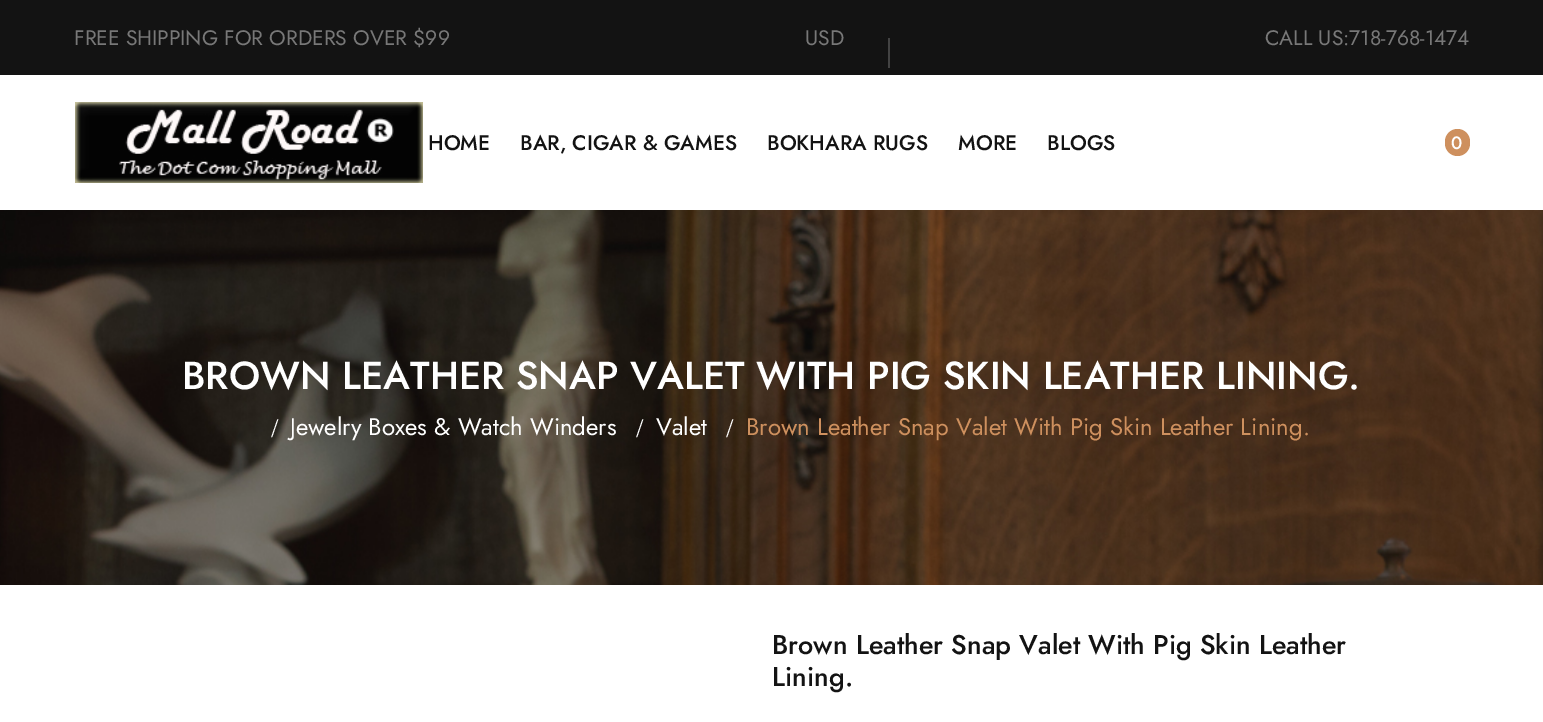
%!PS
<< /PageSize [1543 722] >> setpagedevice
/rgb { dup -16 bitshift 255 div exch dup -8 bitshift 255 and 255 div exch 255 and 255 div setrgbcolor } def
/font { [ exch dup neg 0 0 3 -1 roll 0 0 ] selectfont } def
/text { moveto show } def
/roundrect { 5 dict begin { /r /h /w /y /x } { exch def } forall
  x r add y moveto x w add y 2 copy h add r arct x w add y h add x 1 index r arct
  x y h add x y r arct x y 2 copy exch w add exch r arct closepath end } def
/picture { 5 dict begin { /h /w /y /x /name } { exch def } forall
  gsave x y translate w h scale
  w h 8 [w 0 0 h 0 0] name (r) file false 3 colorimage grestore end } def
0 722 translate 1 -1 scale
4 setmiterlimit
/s1 { /Jost-Regular 21 font 16#787878 rgb } def
/s2 { /Jost-Medium 21 font 16#131313 rgb } def
/s3 { /Jost-Medium 18 font 16#FFFFFF rgb } def
/s4 { /Jost-Medium 39 font 16#FFFFFF rgb } def
/s5 { /LiberationSerif-Regular 27 font 16#FFFFFF rgb } def
/s6 { /Jost-Regular 24 font 16#FFFFFF rgb } def
/s7 { /Jost-Regular 24 font 16#CE905E rgb } def
/s8 { /Jost-Medium 27 font 16#131313 rgb } def
16#FFFFFF rgb
0 0 1543 722 rectfill
16#131313 rgb
0 0 1543 75 rectfill
s1
(FREE SHIPPING FOR ORDERS OVER $99) 74 45 text
(USD) 805 45 text
16#434343 rgb
888 38 2 30 rectfill
s1
(CALL US:718-768-1474) 1265 45 text
(pic1.raw) 75 102 348 81 picture
s2
(HOME) 428 150 text
(BAR, CIGAR & GAMES) 520 150 text
(BOKHARA RUGS) 767 150 text
(MORE) 958 150 text
(BLOGS) 1047 150 text
16#CE905E rgb
1445 129 25 27 12.5 roundrect fill
s3
(0) 1451 149 text
(pic2.raw) 0 210 1543 375 picture
s4
(BROWN LEATHER SNAP VALET WITH PIG SKIN LEATHER LINING.) 182 389 text
s5
(/) 271 437 text
s6
(Jewelry Boxes & Watch Winders) 290 435 text
s5
(/) 636 437 text
s6
(Valet) 656 435 text
s5
(/) 726 437 text
s7
(Brown Leather Snap Valet With Pig Skin Leather Lining.) 746 435 text
s8
(Brown Leather Snap Valet With Pig Skin Leather) 772 654 text
(Lining.) 772 686 text
showpage
